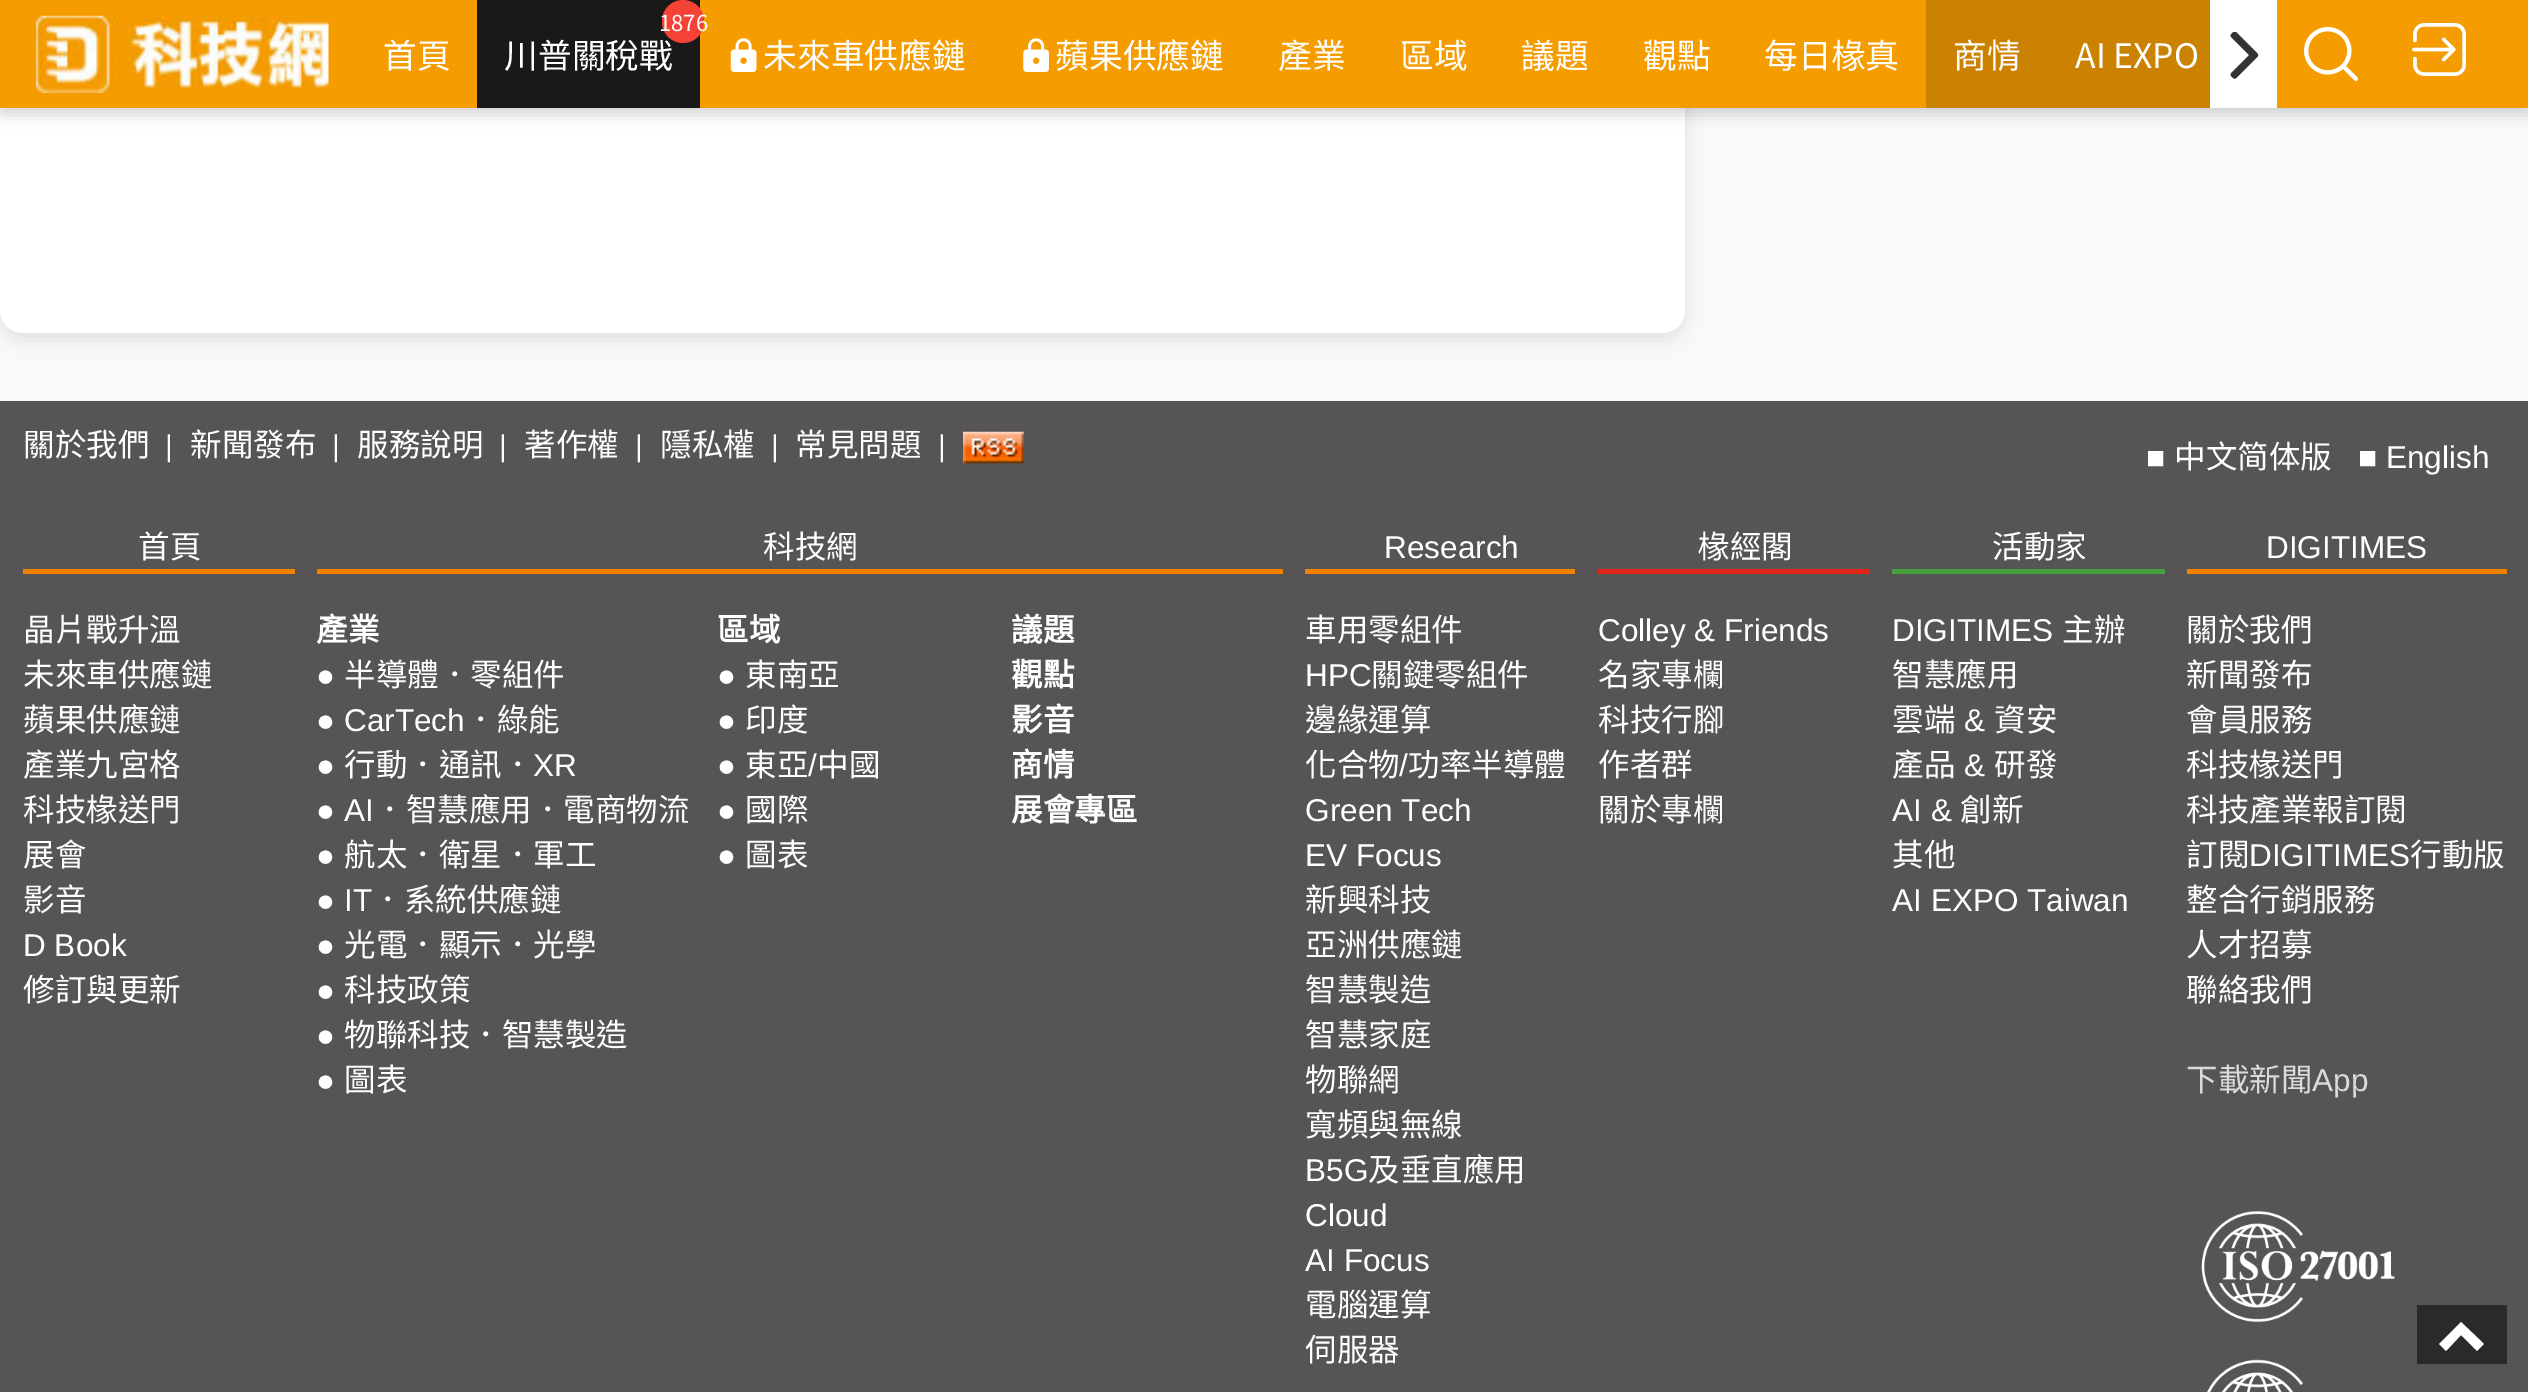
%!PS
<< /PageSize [2528 1392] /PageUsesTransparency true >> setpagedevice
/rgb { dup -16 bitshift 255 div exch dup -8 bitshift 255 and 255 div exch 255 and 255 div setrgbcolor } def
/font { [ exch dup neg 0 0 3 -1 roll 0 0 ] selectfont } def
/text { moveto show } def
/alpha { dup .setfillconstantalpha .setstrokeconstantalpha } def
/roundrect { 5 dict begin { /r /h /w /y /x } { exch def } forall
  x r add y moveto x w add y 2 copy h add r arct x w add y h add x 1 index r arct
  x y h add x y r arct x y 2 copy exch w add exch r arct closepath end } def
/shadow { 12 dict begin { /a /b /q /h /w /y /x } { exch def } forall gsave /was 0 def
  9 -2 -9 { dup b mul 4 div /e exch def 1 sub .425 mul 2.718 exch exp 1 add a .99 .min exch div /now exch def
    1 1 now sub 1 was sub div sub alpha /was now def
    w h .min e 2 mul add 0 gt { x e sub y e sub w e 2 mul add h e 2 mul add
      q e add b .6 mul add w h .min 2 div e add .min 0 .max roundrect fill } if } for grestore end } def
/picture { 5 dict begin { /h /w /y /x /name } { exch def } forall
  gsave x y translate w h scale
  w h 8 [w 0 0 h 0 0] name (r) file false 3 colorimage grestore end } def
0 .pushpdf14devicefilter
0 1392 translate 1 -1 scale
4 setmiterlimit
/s1 { /NotoSansTC-Regular 33.75 font 16#FFFFFF rgb } def
/s2 { /NotoSansTC-Regular 22 font 16#FFFFFF rgb } def
/s3 { /NotoSansCJKTC-Regular 31.5 font 16#FFFFFF rgb } def
/s4 { /LiberationSans-Regular 30 font 16#FFFFFF rgb } def
/s5 { /LiberationSans-Regular 31.5 font 16#FFFFFF rgb } def
/s6 { /NotoSansCJKTC-Bold 31.5 font 16#FFFFFF rgb } def
/s7 { /NotoSansCJKTC-Regular 31.5 font 16#DADADA rgb } def
/s8 { /LiberationSans-Regular 31.5 font 16#DADADA rgb } def
16#F8F9FA rgb
0 0 2528 1392 rectfill
16#0A0B0C rgb
0 -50 1685 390 23 9 0.1 shadow
16#FFFFFF rgb
0 -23 1685 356 23 roundrect fill
16#565454 rgb
0 401 2528 991 rectfill
16#2B2A2A rgb
2417 1305 90 59 rectfill
16#FFFFFF rgb
2461 1322 moveto 2439 1344 lineto 2446 1351 lineto 2461 1335 lineto 2477 1351 lineto 2484 1344 lineto closepath fill
16#000000 rgb
0 7 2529 108 0 7 0.16 shadow
16#F49C00 rgb
0 0 2528 108 rectfill
(pic1.raw) 36 15 293 78 picture
s1
(首頁) 383 68 text
16#191919 rgb
477 0 223 108 rectfill
s1
(川普關稅戰) 504 68 text
16#F44336 rgb
662 0 42 43 21 roundrect fill
s2
(1876) 659 31 text
(pic2.raw) 730 38 27 34 picture
s1
(未來車供應鏈) 763 68 text
(pic3.raw) 1023 38 26 34 picture
(蘋果供應鏈) 1055 68 text
(產業) 1278 68 text
(區域) 1400 68 text
(議題) 1521 68 text
(觀點) 1643 68 text
(每日椽真) 1764 68 text
16#CB8200 rgb
1926 0 284 108 rectfill
s1
(商情) 1953 68 text
(AI EXPO) 2075 68 text
2210 0 67 108 rectfill
(pic4.raw) 2230 32 29 47 picture
(pic5.raw) 2304 27 54 54 picture
(pic6.raw) 2412 23 54 53 picture
s3
(關於我們) 23 456 text
s4
(|) 165 456 text
s3
(新聞發布) 190 456 text
s4
(|) 332 456 text
s3
(服務說明) 357 456 text
s4
(|) 499 456 text
s3
(著作權) 524 456 text
s4
(|) 635 456 text
s3
(隱私權) 660 456 text
s4
(|) 771 456 text
s3
(常見問題) 795 456 text
s4
(|) 938 456 text
(pic7.raw) 963 431 61 33 picture
s5
(■) 2146 468 text
s3
(中文简体版) 2174 468 text
s5
(■ English) 2358 468 text
s3
(首頁) 138 558 text
16#F08200 rgb
23 569 272 5 rectfill
s3
(科技網) 763 558 text
16#F08200 rgb
317 569 966 5 rectfill
s5
(Research) 1384 558 text
16#F08200 rgb
1305 569 270 5 rectfill
s3
(椽經閣) 1698 558 text
16#E2231A rgb
1598 569 272 5 rectfill
s3
(活動家) 1992 558 text
16#47A141 rgb
1892 569 273 5 rectfill
s5
(DIGITIMES) 2266 558 text
16#F08200 rgb
2187 569 320 5 rectfill
s3
(晶片戰升溫) 23 641 text
(未來車供應鏈) 23 686 text
(蘋果供應鏈) 23 731 text
(產業九宮格) 23 776 text
(科技椽送門) 23 821 text
(展會) 23 866 text
(影音) 23 911 text
s5
(D Book) 23 956 text
s3
(修訂與更新) 23 1001 text
s6
(產業) 316 641 text
s5
(●) 316 686 text
s3
(半導體．零組件) 344 686 text
s5
(● CarTech) 316 731 text
s3
(．綠能) 465 731 text
s5
(●) 316 776 text
s3
(行動．通訊．) 344 776 text
s5
(XR) 533 776 text
(● AI) 316 821 text
s3
(．智慧應用．電商物流) 374 821 text
s5
(●) 316 866 text
s3
(航太．衛星．軍工) 344 866 text
s5
(● IT) 316 911 text
s3
(．系統供應鏈) 372 911 text
s5
(●) 316 956 text
s3
(光電．顯示．光學) 344 956 text
s5
(●) 316 1001 text
s3
(科技政策) 344 1001 text
s5
(●) 316 1046 text
s3
(物聯科技．智慧製造) 344 1046 text
s5
(●) 316 1091 text
s3
(圖表) 344 1091 text
s6
(區域) 717 641 text
s5
(●) 717 686 text
s3
(東南亞) 745 686 text
s5
(●) 717 731 text
s3
(印度) 745 731 text
s5
(●) 717 776 text
s3
(東亞) 745 776 text
s5
(/) 808 776 text
s3
(中國) 817 776 text
s5
(●) 717 821 text
s3
(國際) 745 821 text
s5
(●) 717 866 text
s3
(圖表) 745 866 text
s6
(議題) 1011 641 text
(觀點) 1011 686 text
(影音) 1011 731 text
(商情) 1011 776 text
(展會專區) 1011 821 text
s3
(車用零組件) 1305 641 text
s5
(HPC) 1305 686 text
s3
(關鍵零組件) 1371 686 text
(邊緣運算) 1305 731 text
(化合物) 1305 776 text
s5
(/) 1399 776 text
s3
(功率半導體) 1408 776 text
s5
(Green Tech) 1305 821 text
(EV Focus) 1305 866 text
s3
(新興科技) 1305 911 text
(亞洲供應鏈) 1305 956 text
(智慧製造) 1305 1001 text
(智慧家庭) 1305 1046 text
(物聯網) 1305 1091 text
(寬頻與無線) 1305 1136 text
s5
(B5G) 1305 1181 text
s3
(及垂直應用) 1368 1181 text
s5
(Cloud) 1305 1226 text
(AI Focus) 1305 1271 text
s3
(電腦運算) 1305 1316 text
(伺服器) 1305 1361 text
s5
(Colley & Friends) 1598 641 text
s3
(名家專欄) 1598 686 text
(科技行腳) 1598 731 text
(作者群) 1598 776 text
(關於專欄) 1598 821 text
s5
(DIGITIMES) 1892 641 text
s3
(主辦) 2062 641 text
(智慧應用) 1892 686 text
(雲端) 1892 731 text
s5
(&) 1964 731 text
s3
(資安) 1994 731 text
(產品) 1892 776 text
s5
(&) 1964 776 text
s3
(研發) 1994 776 text
s5
(AI &) 1892 821 text
s3
(創新) 1960 821 text
(其他) 1892 866 text
s5
(AI EXPO Taiwan) 1892 911 text
s3
(關於我們) 2186 641 text
(新聞發布) 2186 686 text
(會員服務) 2186 731 text
(科技椽送門) 2186 776 text
(科技產業報訂閱) 2186 821 text
(訂閱) 2186 866 text
s5
(DIGITIMES) 2249 866 text
s3
(行動版) 2410 866 text
(整合行銷服務) 2186 911 text
(人才招募) 2186 956 text
(聯絡我們) 2186 1001 text
s7
(下載新聞) 2186 1091 text
s8
(App) 2312 1091 text
(pic8.raw) 2201 1210 194 113 picture
(pic9.raw) 2207 1359 97 33 picture
.poppdf14devicefilter showpage
